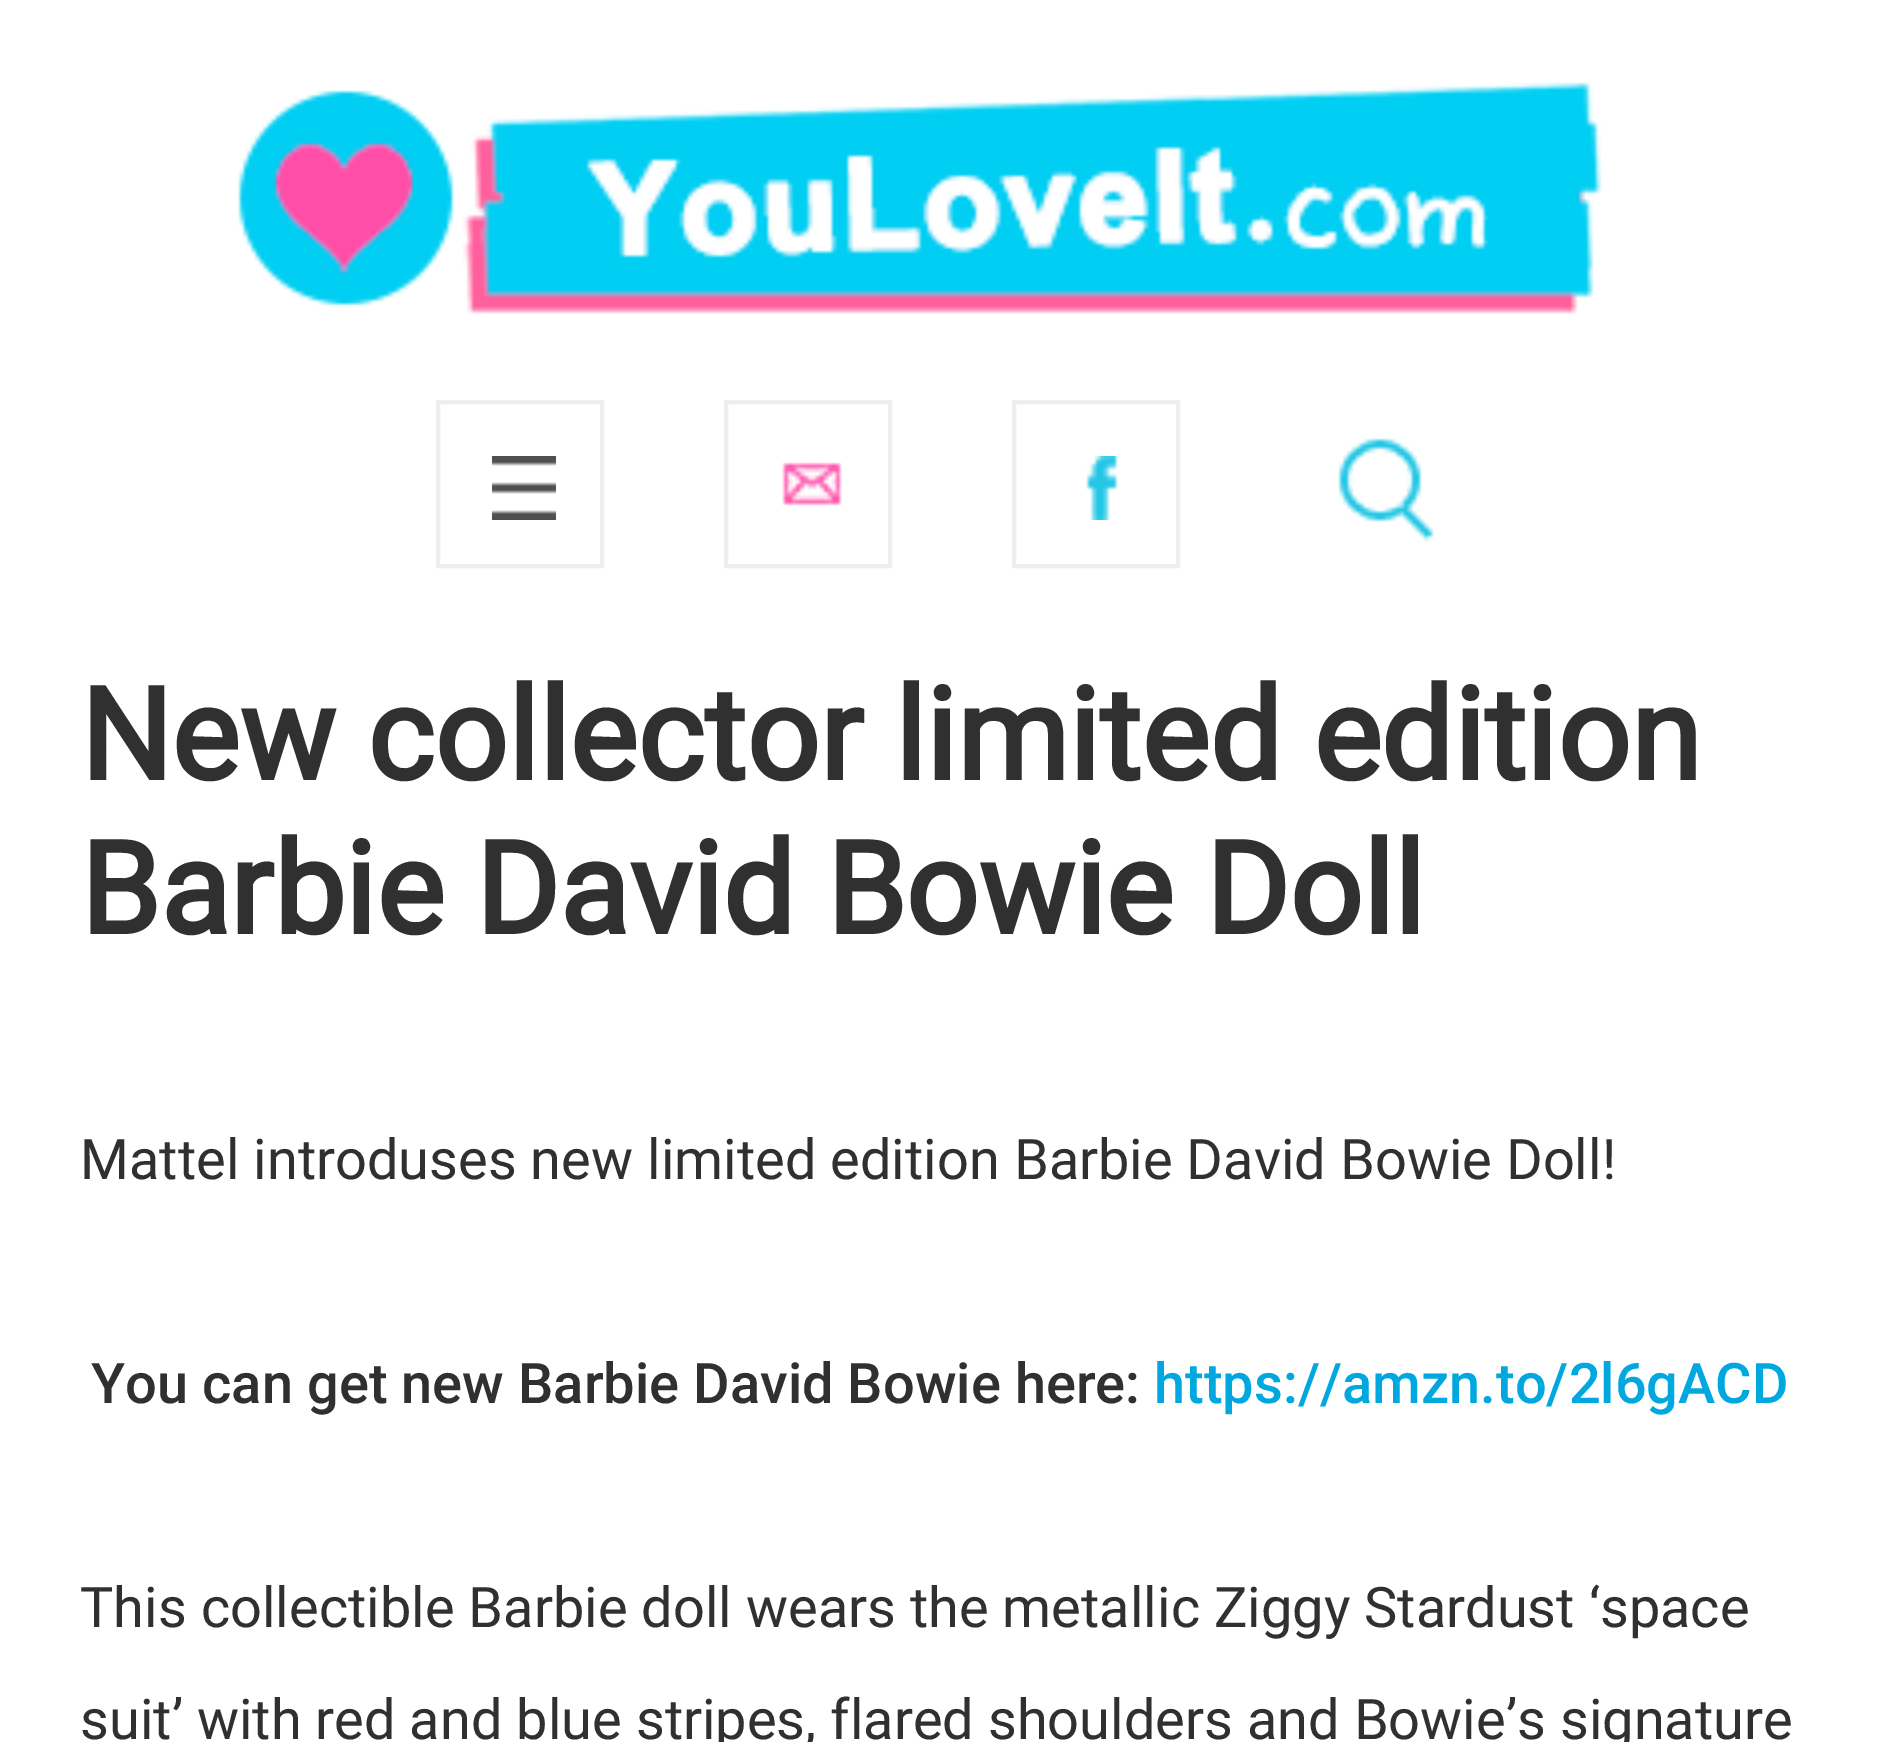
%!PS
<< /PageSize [1878 1742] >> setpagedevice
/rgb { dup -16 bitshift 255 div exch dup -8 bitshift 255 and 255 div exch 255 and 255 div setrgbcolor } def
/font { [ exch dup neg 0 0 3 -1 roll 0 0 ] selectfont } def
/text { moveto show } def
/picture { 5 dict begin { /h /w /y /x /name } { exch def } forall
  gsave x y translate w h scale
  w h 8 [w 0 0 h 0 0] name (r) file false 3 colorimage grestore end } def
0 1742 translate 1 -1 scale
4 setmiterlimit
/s1 { /Roboto-Bold 128 font 16#303030 rgb } def
/s2 { /Roboto-Regular 56 font 16#303030 rgb } def
/s3 { /Roboto-Medium 56 font 16#303030 rgb } def
/s4 { /Roboto-Medium 56 font 16#00A8DF rgb } def
16#FFFFFF rgb
0 0 1878 1742 rectfill
(pic1.raw) 238 82 1364 232 picture
16#EEEEEE rgb
4 setlinewidth
438 402 164 164 rectstroke
(pic2.raw) 492 456 64 64 picture
726 402 164 164 rectstroke
(pic3.raw) 782 462 60 44 picture
1014 402 164 164 rectstroke
(pic4.raw) 1086 456 32 64 picture
(pic5.raw) 1338 438 97 104 picture
s1
(New collector limited edition) 80 780 text
(Barbie David Bowie Doll) 80 934 text
s2
(Mattel introduses new limited edition Barbie David Bowie Doll!) 80 1179 text
s3
(You can get new Barbie David Bowie here:) 91 1403 text
s4
(https://amzn.to/2l6gACD) 1154 1403 text
s2
(This collectible Barbie doll wears the metallic Ziggy Stardust ‘space) 80 1627 text
(suit’ with red and blue stripes, flared shoulders and Bowie’s signature) 80 1739 text
showpage
